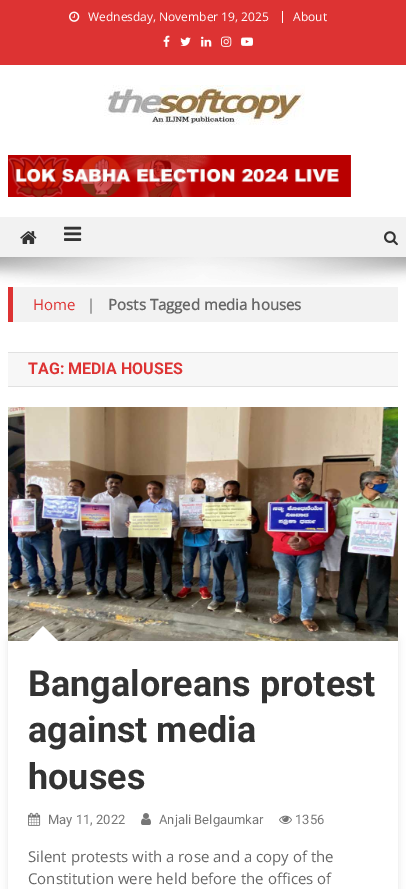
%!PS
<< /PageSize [406 889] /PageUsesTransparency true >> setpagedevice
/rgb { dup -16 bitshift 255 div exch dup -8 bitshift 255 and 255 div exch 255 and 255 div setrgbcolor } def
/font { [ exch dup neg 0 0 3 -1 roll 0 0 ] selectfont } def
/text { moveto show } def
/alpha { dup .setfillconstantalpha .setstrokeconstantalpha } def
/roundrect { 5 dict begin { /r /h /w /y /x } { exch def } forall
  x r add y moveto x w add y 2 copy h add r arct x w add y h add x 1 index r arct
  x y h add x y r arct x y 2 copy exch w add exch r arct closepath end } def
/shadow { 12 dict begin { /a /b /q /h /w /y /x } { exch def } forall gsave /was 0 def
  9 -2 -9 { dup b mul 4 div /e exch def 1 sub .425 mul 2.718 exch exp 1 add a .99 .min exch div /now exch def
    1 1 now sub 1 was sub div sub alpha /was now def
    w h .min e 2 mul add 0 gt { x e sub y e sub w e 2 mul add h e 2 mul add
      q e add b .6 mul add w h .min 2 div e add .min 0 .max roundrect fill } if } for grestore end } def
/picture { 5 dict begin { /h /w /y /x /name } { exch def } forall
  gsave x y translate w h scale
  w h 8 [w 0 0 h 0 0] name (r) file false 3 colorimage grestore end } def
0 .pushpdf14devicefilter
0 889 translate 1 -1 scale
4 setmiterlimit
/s1 { /OpenSans-Regular 12 font 16#FFFFFF rgb } def
/s2 { /OpenSans-Regular 15 font 16#DD3333 rgb } def
/s3 { /OpenSans-Regular 15 font 16#666666 rgb } def
/s4 { /OpenSans-Bold 15 font 16#666666 rgb } def
/s5 { /Roboto-Bold 16 font 16#DD3333 rgb } def
/s6 { /Roboto-Bold 36 font 16#333333 rgb } def
/s7 { /Roboto-Regular 13 font 16#767676 rgb } def
16#FFFFFF rgb
0 0 406 889 rectfill
16#DD3333 rgb
0 0 406 65 rectfill
(pic1.raw) 69 11 11 11 picture
s1
(Wednesday, November 19, 2025) 88 21 text
282 11 1 12 rectfill
(About) 293 21 text
(pic2.raw) 163 35 7 12 picture
(pic3.raw) 180 37 11 9 picture
(pic4.raw) 201 36 11 11 picture
(pic5.raw) 221 36 11 11 picture
(pic6.raw) 241 37 12 9 picture
(pic7.raw) 104 85 201 40 picture
(pic8.raw) 8 155 343 42 picture
16#F2F2F2 rgb
0 217 406 40 rectfill
(pic9.raw) 20 231 17 13 picture
(pic10.raw) 64 226 18 15 picture
(pic11.raw) 384 231 14 15 picture
(pic12.raw) 0 257 406 28 picture
13 287 385 35 rectfill
16#DD3333 rgb
8 287 5 35 rectfill
s2
(Home) 33 310 text
s3
(|) 87 310 text
s4
(Posts Tagged media houses) 108 310 text
16#F7F7F7 rgb
8 353 390 33 rectfill
16#E1E1E1 rgb
8 352 390 1 rectfill
8 386 390 1 rectfill
s5
(TAG: MEDIA HOUSES) 28 374 text
(pic13.raw) 8 407 390 234 picture
gsave
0 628 moveto 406 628 lineto 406 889 lineto 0 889 lineto closepath 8 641 moveto 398 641 lineto 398 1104 lineto 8 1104 lineto closepath eoclip newpath
16#000000 rgb
8 641 390 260 0 4 0.1 shadow
grestore
16#FFFFFF rgb
58 641 moveto 28 641 lineto 43 626 lineto closepath fill
s6
(Bangaloreans protest) 28 696 text
(against media) 28 742 text
(houses) 28 789 text
(pic14.raw) 28 812 13 14 picture
s7
(May 11, 2022) 48 824 text
(pic15.raw) 141 813 10 12 picture
(Anjali Belgaumkar) 159 824 text
(pic16.raw) 279 815 13 9 picture
(1356) 295 824 text
s3
(Silent protests with a rose and a copy of the) 28 862 text
(Constitution were held before the offices of) 28 884 text
.poppdf14devicefilter showpage
